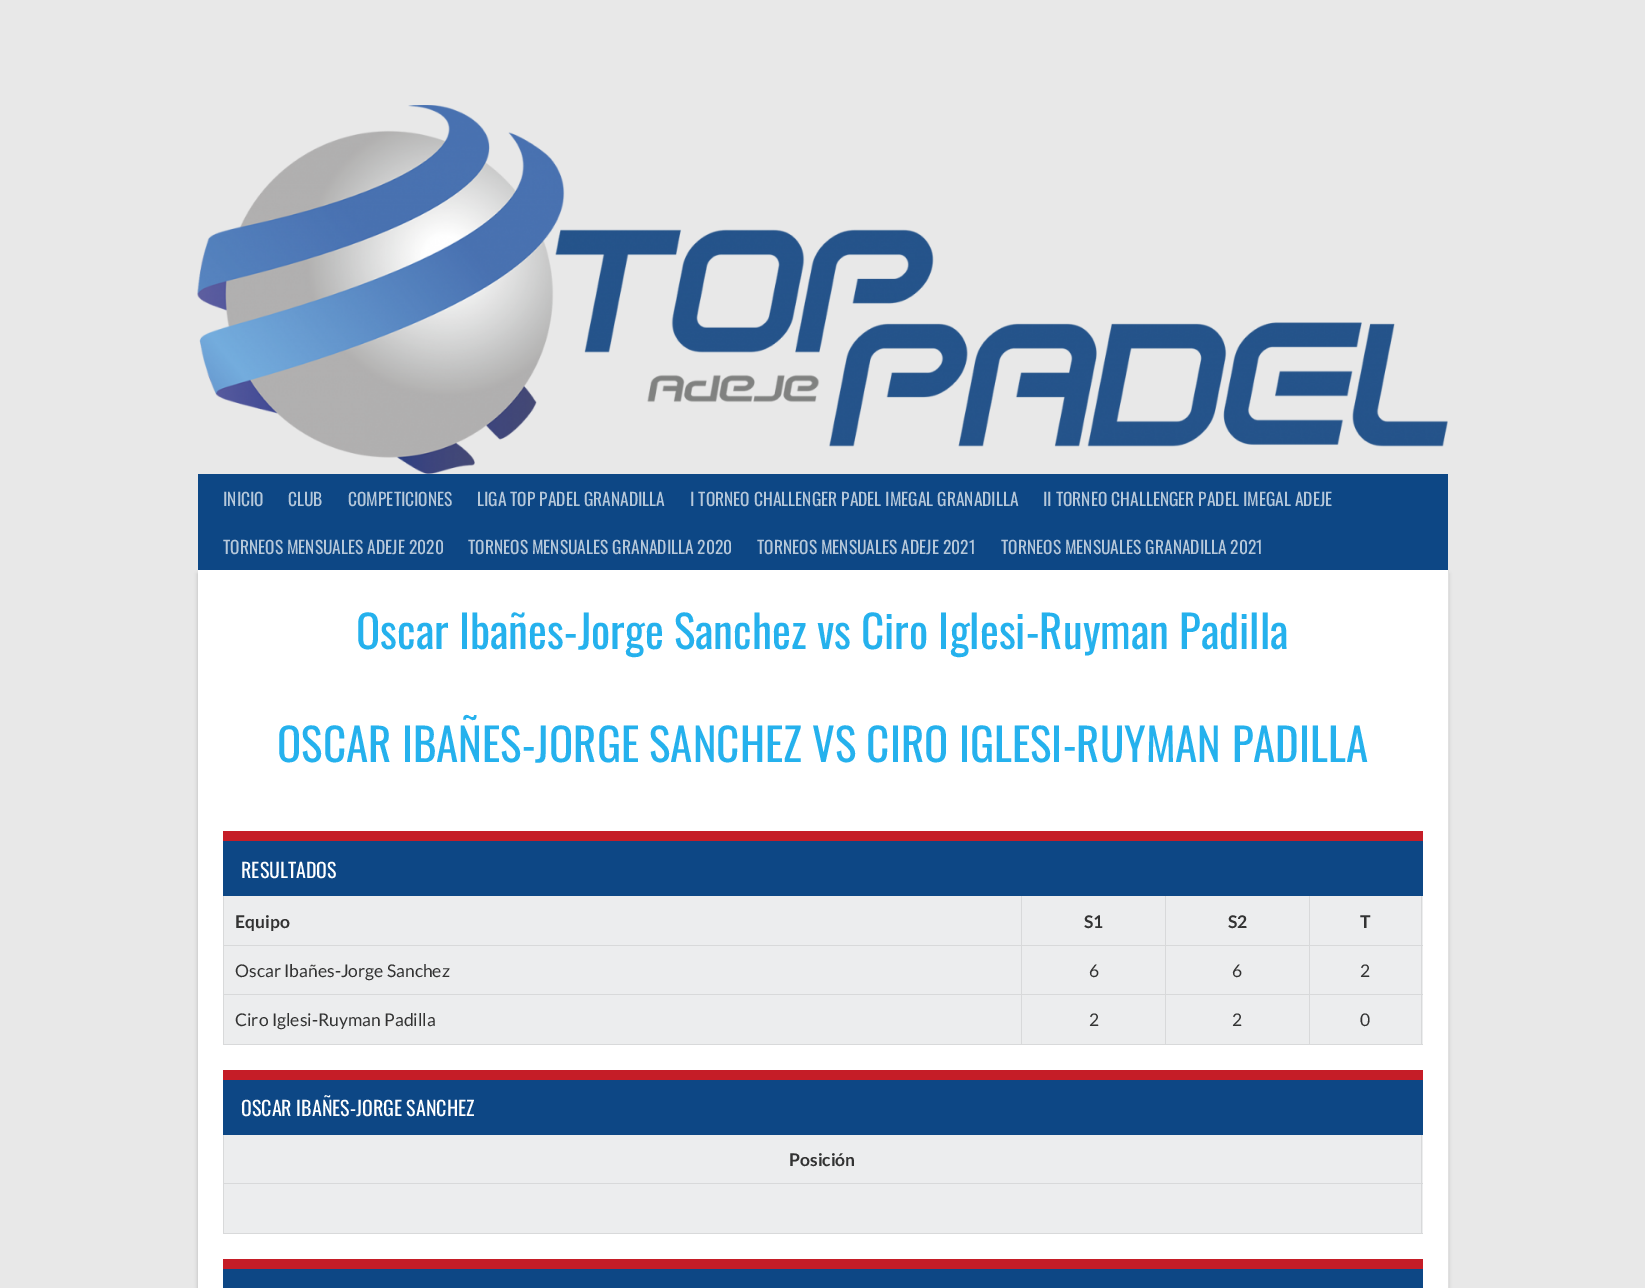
%!PS
<< /PageSize [1645 1288] /PageUsesTransparency true >> setpagedevice
/rgb { dup -16 bitshift 255 div exch dup -8 bitshift 255 and 255 div exch 255 and 255 div setrgbcolor } def
/font { [ exch dup neg 0 0 3 -1 roll 0 0 ] selectfont } def
/text { moveto show } def
/alpha { dup .setfillconstantalpha .setstrokeconstantalpha } def
/roundrect { 5 dict begin { /r /h /w /y /x } { exch def } forall
  x r add y moveto x w add y 2 copy h add r arct x w add y h add x 1 index r arct
  x y h add x y r arct x y 2 copy exch w add exch r arct closepath end } def
/shadow { 12 dict begin { /a /b /q /h /w /y /x } { exch def } forall gsave /was 0 def
  9 -2 -9 { dup b mul 4 div /e exch def 1 sub .425 mul 2.718 exch exp 1 add a .99 .min exch div /now exch def
    1 1 now sub 1 was sub div sub alpha /was now def
    w h .min e 2 mul add 0 gt { x e sub y e sub w e 2 mul add h e 2 mul add
      q e add b .6 mul add w h .min 2 div e add .min 0 .max roundrect fill } if } for grestore end } def
/picture { 5 dict begin { /h /w /y /x /name } { exch def } forall
  gsave x y translate w h scale
  w h 8 [w 0 0 h 0 0] name (r) file false 3 colorimage grestore end } def
0 .pushpdf14devicefilter
0 1288 translate 1 -1 scale
4 setmiterlimit
/s1 { /Oswald-Regular 17.5 font 16#B6C8DA rgb } def
/s2 { /Oswald-Regular 45 font 16#25B1ED rgb } def
/s3 { /Oswald-Regular 20 font 16#FFFFFF rgb } def
/s4 { /Lato-Bold 17.5 font 16#333333 rgb } def
/s5 { /Lato-Regular 17.5 font 16#333333 rgb } def
16#E8E8E8 rgb
0 0 1645 1288 rectfill
(pic1.raw) 197 105 1251 369 picture
16#000000 rgb
198 574 1250 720 0 2 0.2 shadow
16#0D4785 rgb
198 474 1250 96 rectfill
s1
(INICIO) 223 506 text
(CLUB) 288 506 text
(COMPETICIONES) 348 506 text
(LIGA TOP PADEL GRANADILLA) 477 506 text
(I TORNEO CHALLENGER PADEL IMEGAL GRANADILLA) 690 506 text
(II TORNEO CHALLENGER PADEL IMEGAL ADEJE) 1043 506 text
(TORNEOS MENSUALES ADEJE 2020) 223 554 text
(TORNEOS MENSUALES GRANADILLA 2020) 468 554 text
(TORNEOS MENSUALES ADEJE 2021) 757 554 text
(TORNEOS MENSUALES GRANADILLA 2021) 1001 554 text
16#FFFFFF rgb
198 570 1250 718 rectfill
16#E0E0E0 rgb
199 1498 moveto 1449 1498 lineto 1449 570 lineto 1448 570 lineto 1448 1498 lineto closepath fill
s2
(Oscar Ibañes-Jorge Sanchez vs Ciro Iglesi-Ruyman Padilla) 356 649 text
(OSCAR IBAÑES-JORGE SANCHEZ VS CIRO IGLESI-RUYMAN PADILLA) 277 762 text
16#ECEDEE rgb
224 896 1199 148 rectfill
16#D8D9DA rgb
1421 895 1 150 rectfill
223 1044 1200 1 rectfill
223 895 1 150 rectfill
1309 945 114 1 rectfill
1309 994 114 1 rectfill
1309 994 1 51 rectfill
1165 994 145 1 rectfill
1309 945 1 50 rectfill
1165 945 145 1 rectfill
1165 994 1 51 rectfill
1021 994 145 1 rectfill
1165 945 1 50 rectfill
1021 945 145 1 rectfill
1021 994 1 51 rectfill
223 994 800 1 rectfill
1021 945 1 50 rectfill
223 945 800 1 rectfill
1021 895 1 51 rectfill
1165 895 1 51 rectfill
1309 895 1 51 rectfill
16#0D4785 rgb
223 841 1200 55 rectfill
16#C51D27 rgb
223 831 1200 10 rectfill
s3
(RESULTADOS) 241 878 text
s4
(Equipo) 235 928 text
(S1) 1084 928 text
(S2) 1228 928 text
(T) 1360 928 text
s5
(Oscar Ibañes-Jorge Sanchez) 235 977 text
(6) 1089 977 text
(6) 1232 977 text
(2) 1360 977 text
(Ciro Iglesi-Ruyman Padilla) 235 1026 text
(2) 1089 1026 text
(2) 1232 1026 text
(0) 1360 1026 text
16#ECEDEE rgb
224 1135 1199 98 rectfill
16#D8D9DA rgb
1421 1134 1 100 rectfill
223 1233 1200 1 rectfill
223 1134 1 100 rectfill
16#0D4785 rgb
223 1080 1200 55 rectfill
16#C51D27 rgb
223 1070 1200 10 rectfill
s3
(OSCAR IBAÑES-JORGE SANCHEZ) 241 1116 text
s4
(Posición) 789 1166 text
16#D8D9DA rgb
223 1183 1200 1 rectfill
16#0D4785 rgb
223 1269 1200 19 rectfill
16#C51D27 rgb
223 1259 1200 10 rectfill
.poppdf14devicefilter showpage
